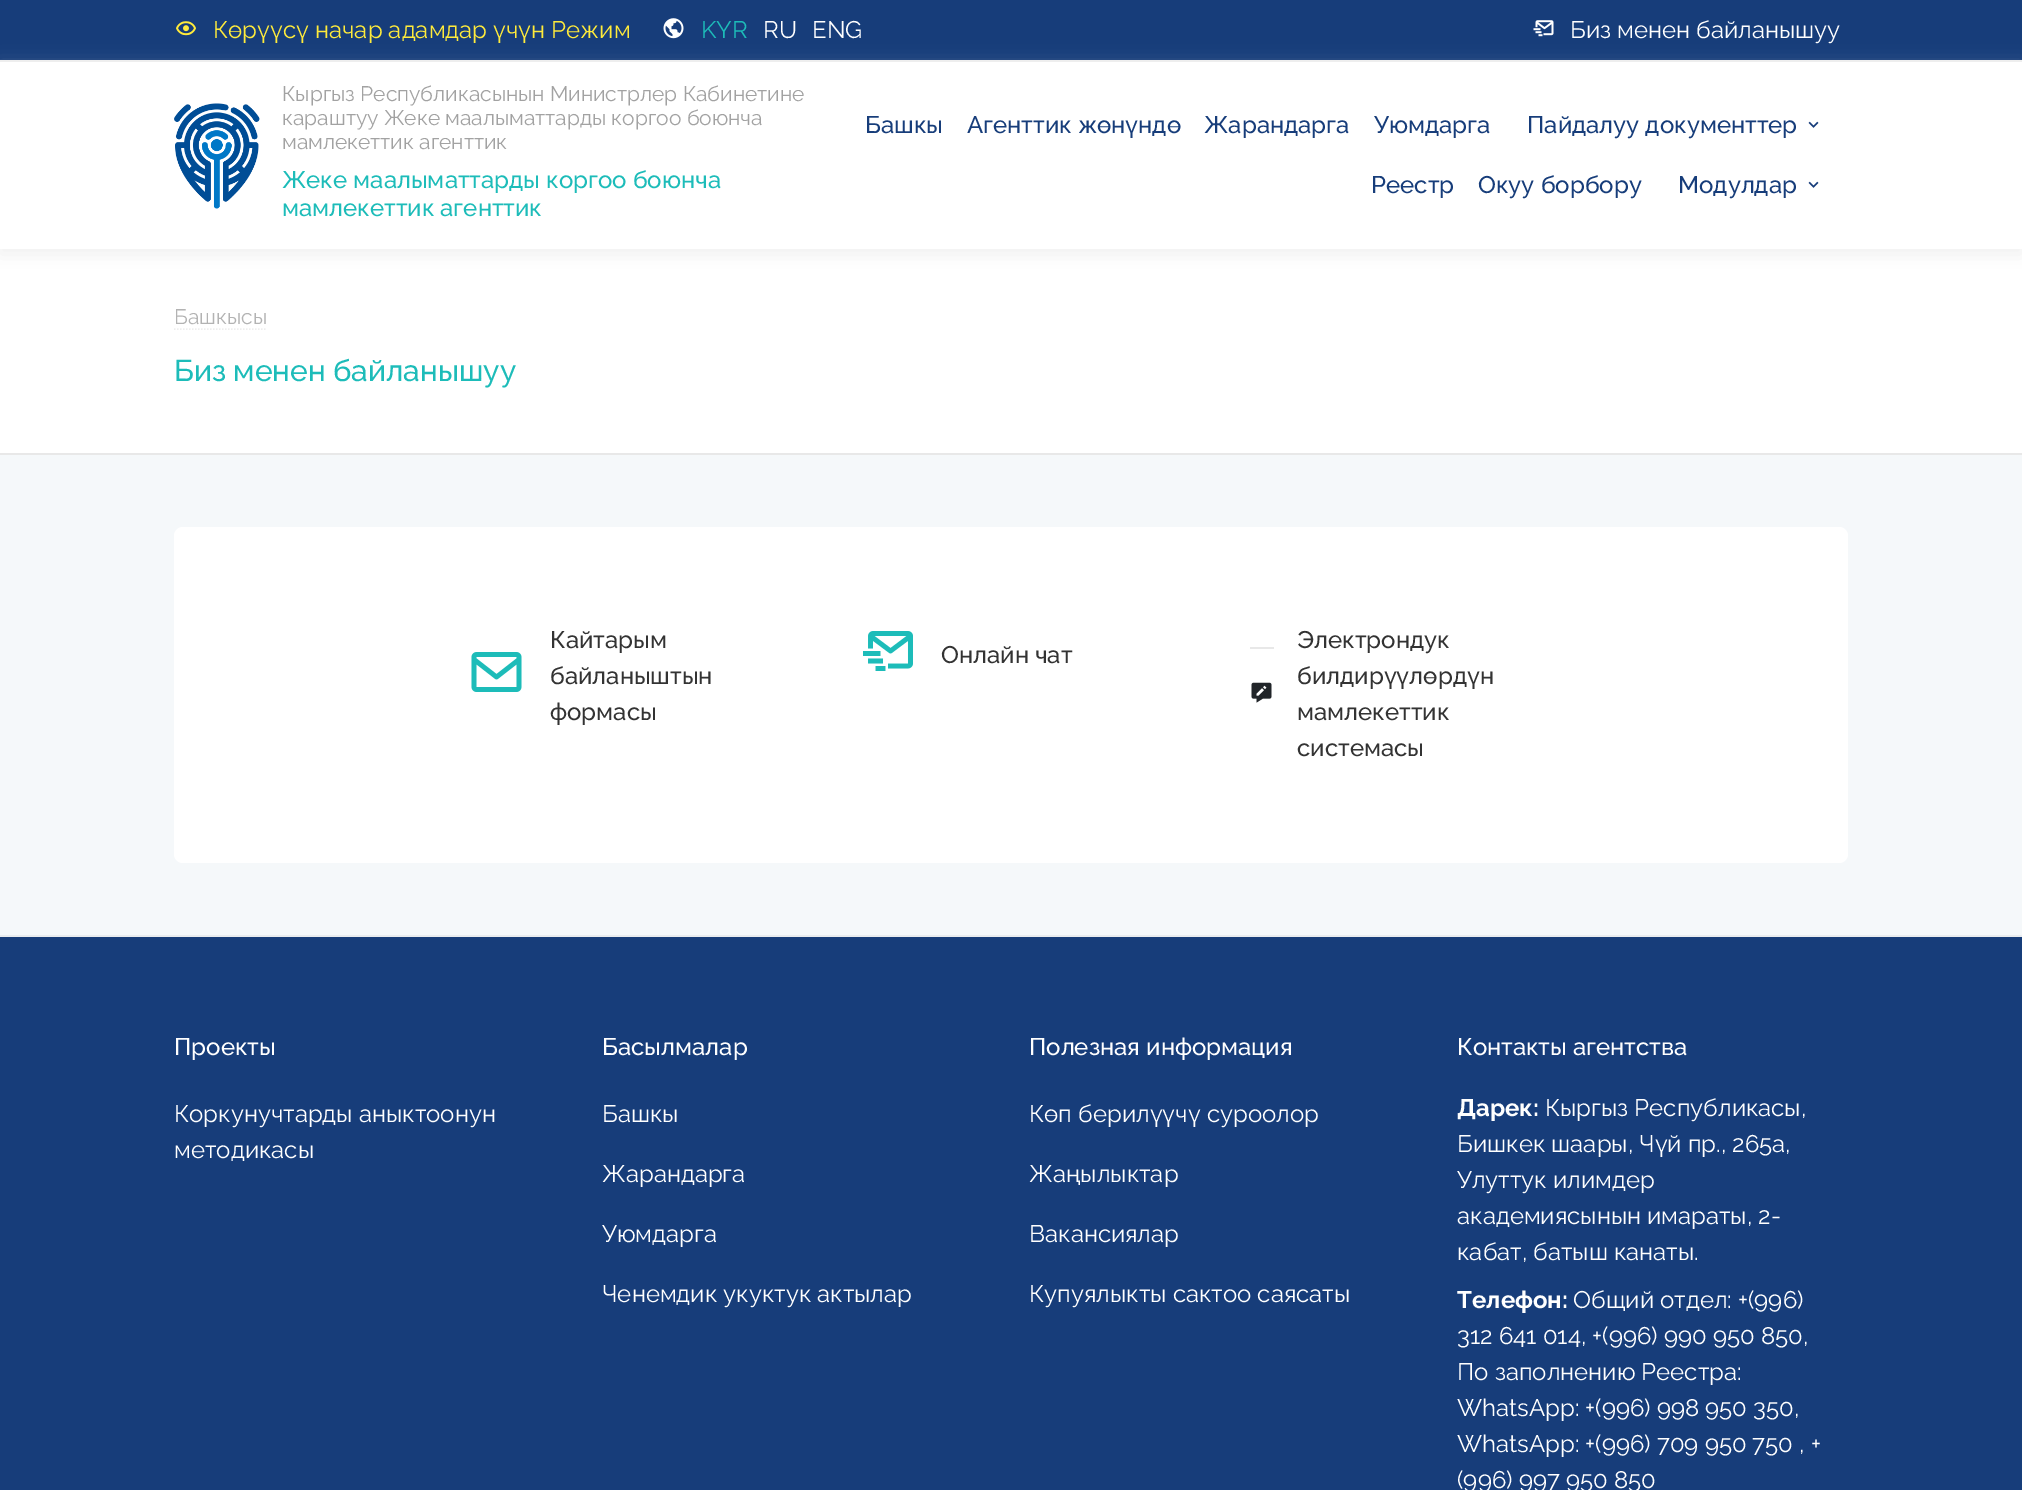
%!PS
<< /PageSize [2022 1490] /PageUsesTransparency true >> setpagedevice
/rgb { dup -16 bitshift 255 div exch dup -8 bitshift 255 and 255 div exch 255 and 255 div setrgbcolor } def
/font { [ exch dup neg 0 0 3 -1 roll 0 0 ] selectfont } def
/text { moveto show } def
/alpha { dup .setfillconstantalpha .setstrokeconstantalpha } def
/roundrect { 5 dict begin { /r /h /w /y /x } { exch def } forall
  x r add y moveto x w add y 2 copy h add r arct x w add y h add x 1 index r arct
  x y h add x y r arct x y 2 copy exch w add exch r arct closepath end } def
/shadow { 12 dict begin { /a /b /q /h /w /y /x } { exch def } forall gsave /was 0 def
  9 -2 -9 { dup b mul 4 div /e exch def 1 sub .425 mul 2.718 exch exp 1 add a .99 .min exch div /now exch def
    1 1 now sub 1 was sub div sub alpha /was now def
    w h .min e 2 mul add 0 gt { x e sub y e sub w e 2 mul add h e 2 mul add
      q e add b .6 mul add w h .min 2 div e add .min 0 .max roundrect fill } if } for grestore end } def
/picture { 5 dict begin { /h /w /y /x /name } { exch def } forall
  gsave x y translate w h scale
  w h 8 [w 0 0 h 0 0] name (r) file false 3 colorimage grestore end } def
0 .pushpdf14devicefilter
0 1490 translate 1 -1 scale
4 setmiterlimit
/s1 { /Raleway-Regular 24 font 16#FFEB3B rgb } def
/s2 { /Raleway-Regular 24 font 16#1DBCB9 rgb } def
/s3 { /Raleway-Regular 24 font 16#FFFFFF rgb } def
/s4 { /Raleway-Regular 21 font 16#A2A2A2 rgb } def
/s5 { /Raleway-Medium 24 font 16#1DBCB9 rgb } def
/s6 { /Raleway-Medium 24 font 16#173D7A rgb } def
/s7 { /Raleway-Regular 21 font 16#B3B3B3 rgb } def
/s8 { /Raleway-Medium 30 font 16#1DBCB9 rgb } def
/s9 { /Raleway-Medium 24 font 16#333333 rgb } def
/s10 { /Raleway-Medium 24 font 16#FFFFFF rgb } def
/s11 { /Raleway-Bold 24 font 16#FFFFFF rgb } def
16#FFFFFF rgb
0 0 2022 1490 rectfill
16#173D7A rgb
0 0 2022 60 rectfill
(pic1.raw) 176 21 20 15 picture
gsave
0 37 moveto 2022 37 lineto 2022 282 lineto 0 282 lineto closepath 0 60 moveto 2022 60 lineto 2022 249 lineto 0 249 lineto closepath eoclip newpath
16#C7C7C7 rgb
0 65 2022 189 0 9 0.3 shadow
grestore
s1
(Көрүүсү начар адамдар үчүн Режим) 213 38 text
(pic2.raw) 663 18 21 21 picture
s2
(KYR) 701 38 text
s3
(RU) 763 38 text
(ENG) 812 38 text
(pic3.raw) 1533 20 21 17 picture
(Биз менен байланышуу) 1570 38 text
16#EEEEEE rgb
0 60 2022 2 rectfill
(pic4.raw) 174 103 86 106 picture
s4
(Кыргыз Республикасынын Министрлер Кабинетине) 282 101 text
(караштуу Жеке маалыматтарды коргоо боюнча) 282 125 text
(мамлекеттик агенттик) 282 149 text
s5
(Жеке маалыматтарды коргоо боюнча) 282 188 text
(мамлекеттик агенттик) 282 216 text
s6
(Башкы) 865 133 text
(Агенттик жөнүндө) 967 133 text
(Жарандарга) 1204 133 text
(Уюмдарга) 1374 133 text
(Пайдалуу документтер) 1527 133 text
(pic5.raw) 1808 121 11 7 picture
(Реестр) 1371 193 text
(Окуу борбору) 1478 193 text
(Модулдар) 1678 193 text
(pic5.raw) 1808 181 11 7 picture
16#E8E8E8 rgb
0 453 2022 2 rectfill
s7
(Башкысы) 174 324 text
16#EEEEEE rgb
1.5 setlinewidth
[1.5 1.5] 0 setdash
174 329 moveto 267 329 lineto stroke
s8
(Биз менен байланышуу) 174 381 text
16#F5F8FA rgb
0 455 2022 480 rectfill
16#FFFFFF rgb
174 527 1674 336 9 roundrect fill
(pic6.raw) 471 652 51 40 picture
s9
(Кайтарым) 550 648 text
(байланыштын) 550 684 text
(формасы) 550 720 text
(pic7.raw) 863 631 50 40 picture
(Онлайн чат) 941 663 text
16#E8E8E8 rgb
1250 647 24 2 rectfill
(pic8.raw) 1251 682 21 21 picture
s9
(Электрондук) 1297 648 text
(билдирүүлөрдүн) 1297 684 text
(мамлекеттик) 1297 720 text
(системасы) 1297 756 text
16#173D7A rgb
0 937 2022 553 rectfill
16#E9ECEF rgb
0 935 2022 2 rectfill
s10
(Проекты) 174 1055 text
s3
(Коркунучтарды аныктоонун) 174 1122 text
(методикасы) 174 1158 text
s10
(Басылмалар) 602 1055 text
s3
(Башкы) 602 1122 text
(Жарандарга) 602 1182 text
(Уюмдарга) 602 1242 text
(Ченемдик укуктук актылар) 602 1302 text
s10
(Полезная информация) 1029 1055 text
s3
(Көп берилүүчү суроолор) 1029 1122 text
(Жаңылыктар) 1029 1182 text
(Вакансиялар) 1029 1242 text
(Купуялыкты сактоо саясаты) 1029 1302 text
s10
(Контакты агентства) 1457 1055 text
s11
(Дарек:) 1457 1116 text
s3
(Кыргыз Республикасы,) 1545 1116 text
(Бишкек шаары, Чүй пр., 265а,) 1457 1152 text
(Улуттук илимдер) 1457 1188 text
(академиясынын имараты, 2-) 1457 1224 text
(кабат, батыш канаты.) 1457 1260 text
s11
(Телефон:) 1457 1308 text
s3
(Общий отдел: +\(996\)) 1573 1308 text
(312 641 014, +\(996\) 990 950 850,) 1457 1344 text
(По заполнению Реестра:) 1457 1380 text
(WhatsApp: +\(996\) 998 950 350,) 1457 1416 text
(WhatsApp: +\(996\) 709 950 750 , +) 1457 1452 text
(\(996\) 997 950 850) 1457 1488 text
.poppdf14devicefilter showpage
